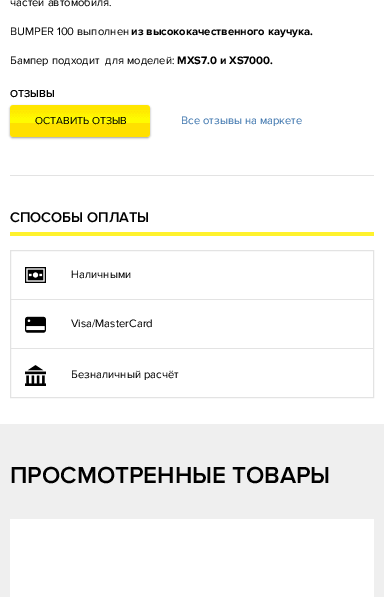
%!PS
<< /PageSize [384 597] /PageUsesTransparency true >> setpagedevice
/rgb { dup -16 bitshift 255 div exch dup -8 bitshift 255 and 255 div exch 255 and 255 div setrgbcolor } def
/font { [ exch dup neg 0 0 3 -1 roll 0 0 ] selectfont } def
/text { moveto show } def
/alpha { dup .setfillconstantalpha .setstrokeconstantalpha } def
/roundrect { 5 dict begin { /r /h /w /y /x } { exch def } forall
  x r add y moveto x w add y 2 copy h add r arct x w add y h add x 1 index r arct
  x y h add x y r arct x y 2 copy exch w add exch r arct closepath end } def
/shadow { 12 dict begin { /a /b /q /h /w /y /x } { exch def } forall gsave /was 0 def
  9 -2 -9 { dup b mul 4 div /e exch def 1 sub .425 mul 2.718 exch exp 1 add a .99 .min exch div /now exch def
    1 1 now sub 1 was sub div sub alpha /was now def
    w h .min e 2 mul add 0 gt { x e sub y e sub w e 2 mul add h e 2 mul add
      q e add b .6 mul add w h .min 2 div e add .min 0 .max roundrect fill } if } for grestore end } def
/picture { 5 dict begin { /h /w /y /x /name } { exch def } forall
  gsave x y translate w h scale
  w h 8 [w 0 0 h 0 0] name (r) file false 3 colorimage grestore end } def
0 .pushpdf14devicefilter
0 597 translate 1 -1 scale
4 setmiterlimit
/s1 { /ProximaNova-Regular 11.25 font 16#000000 rgb } def
/s2 { /ProximaNova-Bold 11.25 font 16#000000 rgb } def
/s3 { /ProximaNova-SemiBold 10.5 font 16#000000 rgb } def
/s4 { /ProximaNova-Regular 10.5 font 16#000000 rgb } def
/s5 { /ProximaNova-Regular 11.25 font 16#3C74AD rgb } def
/s6 { /ProximaNova-SemiBold 14.5 font 16#000000 rgb } def
/s7 { /ProximaNova-SemiBold 24 font 16#000000 rgb } def
16#FFFFFF rgb
0 0 384 597 rectfill
s1
(частей автомобиля.) 10 6 text
(BUMPER 100 выполнен) 10 35 text
s2
(из высококачественного каучука.) 131 35 text
s1
(Бампер подходит  для моделей:) 10 64 text
s2
(MXS7.0 и XS7000.) 177 64 text
s3
(ОТЗЫВЫ) 10 97 text
16#E3E3E3 rgb
10 175 364 1 rectfill
16#000000 rgb
10 106 140 32 3 1 0.37 shadow
(pic1.raw) 10 105 140 32 picture
s4
(ОСТАВИТЬ ОТЗЫВ) 35 124 text
s5
(Все отзывы на маркете) 181 124 text
16#FFF22D rgb
10 232 364 4 rectfill
s6
(СПОСОБЫ ОПЛАТЫ) 10 222 text
16#E3E3E3 rgb
10.5 250.5 363 147 rectstroke
11 299 362 1 rectfill
(pic2.raw) 25 267 21 16 picture
s1
(Наличными) 71 278 text
16#E3E3E3 rgb
11 348 362 1 rectfill
(pic3.raw) 25 316 21 17 picture
s1
(Visa/MasterCard) 71 327 text
(pic4.raw) 25 365 21 21 picture
(Безналичный расчёт) 71 378 text
16#EFEFEF rgb
0 424 384 173 rectfill
s7
(ПРОСМОТРЕННЫЕ ТОВАРЫ) 10 483 text
16#FFFFFF rgb
10 519 364 78 rectfill
.poppdf14devicefilter showpage
